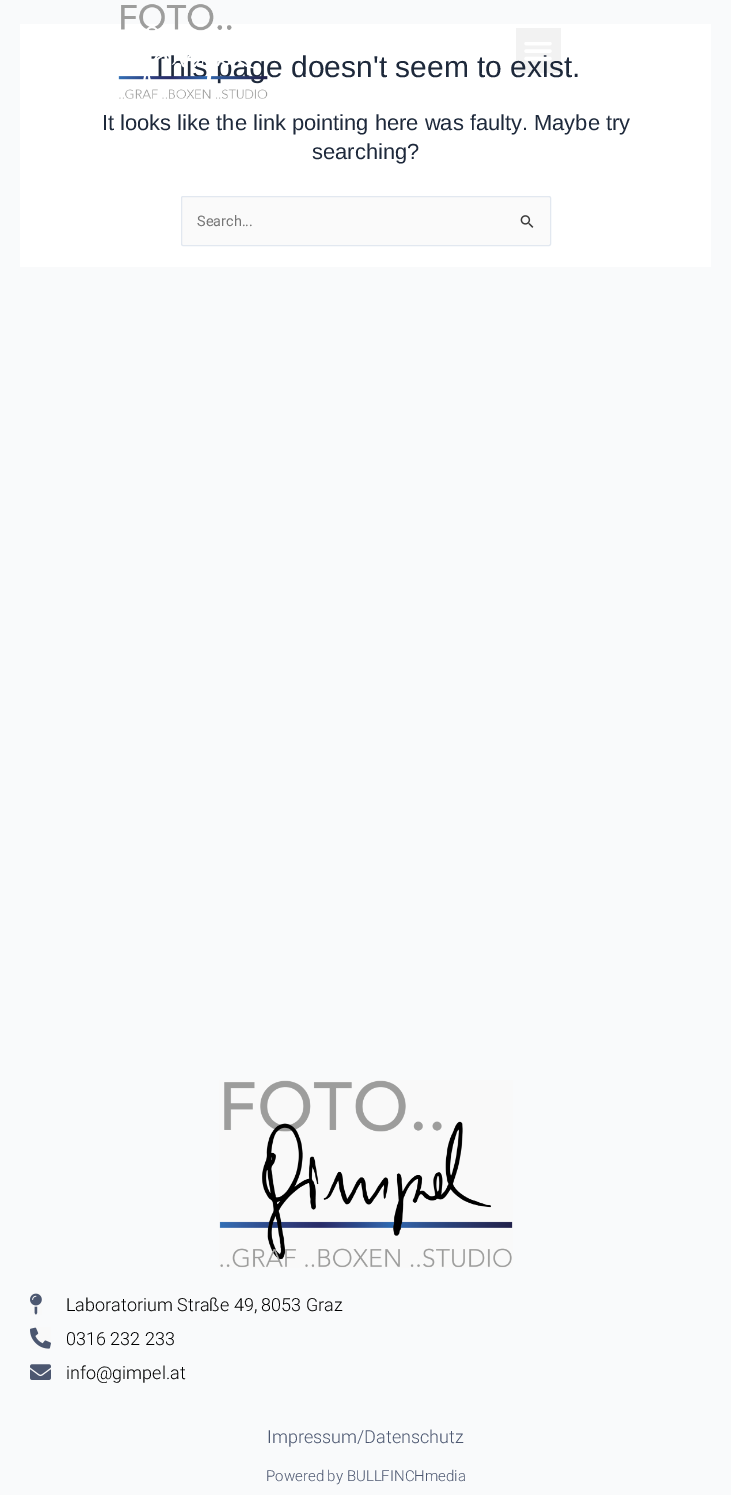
%!PS
<< /PageSize [731 1495] /PageUsesTransparency true >> setpagedevice
/rgb { dup -16 bitshift 255 div exch dup -8 bitshift 255 and 255 div exch 255 and 255 div setrgbcolor } def
/font { [ exch dup neg 0 0 3 -1 roll 0 0 ] selectfont } def
/text { moveto show } def
/alpha { dup .setfillconstantalpha .setstrokeconstantalpha } def
/roundrect { 5 dict begin { /r /h /w /y /x } { exch def } forall
  x r add y moveto x w add y 2 copy h add r arct x w add y h add x 1 index r arct
  x y h add x y r arct x y 2 copy exch w add exch r arct closepath end } def
/picture { 5 dict begin { /h /w /y /x /name } { exch def } forall
  gsave x y translate w h scale
  w h 8 [w 0 0 h 0 0] name (r) file false 3 colorimage grestore end } def
0 .pushpdf14devicefilter
0 1495 translate 1 -1 scale
4 setmiterlimit
/s1 { /LiberationSans-Regular 30 font 16#1E293B rgb } def
/s2 { /LiberationSans-Regular 21.9 font 16#1E293B rgb } def
/s3 { /Roboto-Regular 14.5 font 16#757575 rgb } def
/s4 { /Roboto-Light 18 font 16#000000 rgb } def
/s5 { /Roboto-Light 18 font 16#4C5770 rgb } def
/s6 { /Roboto-Light 15 font 16#4C5770 rgb } def
16#F9FAFB rgb
0 0 731 1495 rectfill
16#FFFFFF rgb
20 24 691 243 rectfill
s1
(This page doesn't seem to exist.) 151 77 text
(pic1.raw) 118 4 150 95 picture
0.05 alpha
16#000000 rgb
516 28 45 45 rectfill
1 alpha
(pic2.raw) 524 42 28 19 picture
s2
(It looks like the link pointing here was faulty. Maybe try) 102 130 text
(searching?) 312 159 text
16#FAFAFA rgb
181.5 196.5 369 49 1.5 roundrect gsave fill grestore
16#E2E8F0 rgb
stroke
s3
(Search...) 197 226 text
(pic3.raw) 520 215 14 13 picture
(pic4.raw) 219 1080 294 188 picture
(pic5.raw) 30 1293 12 22 picture
s4
(Laboratorium Straße 49, 8053 Graz) 66 1311 text
(pic6.raw) 30 1327 21 22 picture
(0316 232 233) 66 1345 text
(pic7.raw) 30 1364 21 16 picture
(info@gimpel.at) 66 1379 text
s5
(Impressum/Datenschutz) 267 1443 text
s6
(Powered by BULLFINCHmedia) 266 1481 text
.poppdf14devicefilter showpage
